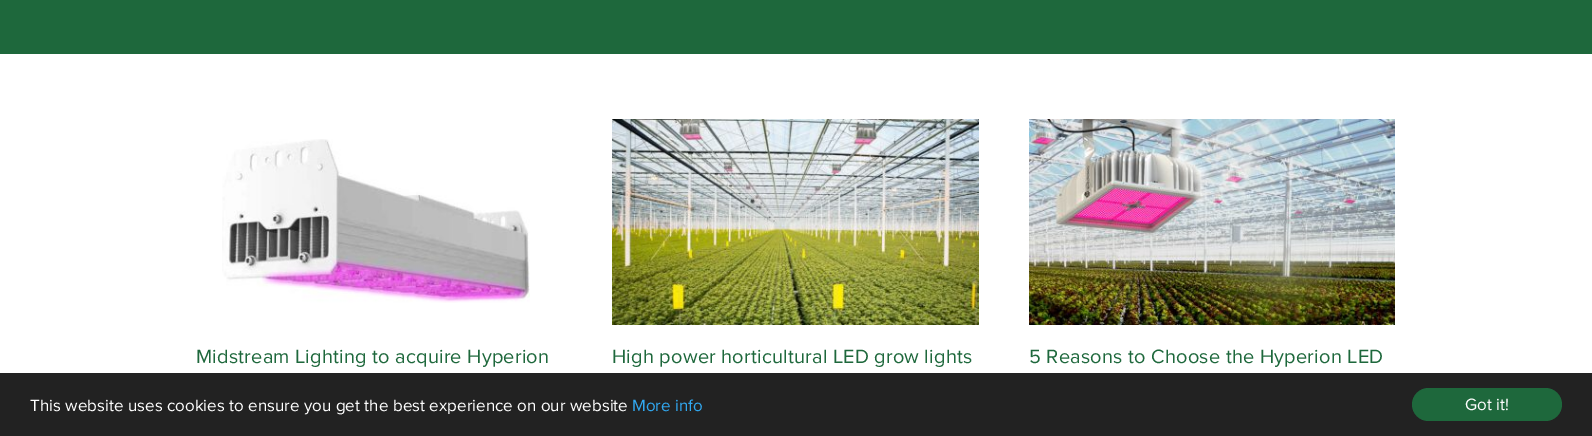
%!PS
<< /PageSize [1592 436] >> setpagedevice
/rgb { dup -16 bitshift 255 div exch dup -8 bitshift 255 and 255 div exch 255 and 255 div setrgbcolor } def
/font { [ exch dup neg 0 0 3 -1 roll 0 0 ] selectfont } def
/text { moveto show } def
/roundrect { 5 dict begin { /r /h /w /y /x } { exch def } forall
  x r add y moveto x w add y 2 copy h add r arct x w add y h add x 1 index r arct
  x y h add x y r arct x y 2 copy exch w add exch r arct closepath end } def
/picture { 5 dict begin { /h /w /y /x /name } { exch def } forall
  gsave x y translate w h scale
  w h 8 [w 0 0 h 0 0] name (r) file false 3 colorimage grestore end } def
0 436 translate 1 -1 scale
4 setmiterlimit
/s1 { /ProximaNova-Regular 17 font 16#FFFFFF rgb } def
/s2 { /ProximaNova-Regular 17 font 16#31A8F0 rgb } def
16#FFFFFF rgb
0 0 1592 436 rectfill
16#1E683C rgb
0 0 1592 54 rectfill
(pic1.raw) 222 139 308 164 picture
/ProximaNova-Regular 20 font
196 363 moveto 0.2 0 (Midstream Lighting to acquire Hyperion) ashow
(pic2.raw) 612 119 367 206 picture
612 363 moveto 0.2 0 (High power horticultural LED grow lights) ashow
(pic3.raw) 1029 119 366 206 picture
1029 363 moveto 0.2 0 (5 Reasons to Choose the Hyperion LED) ashow
16#222222 rgb
0 373 1592 63 rectfill
s1
(This website uses cookies to ensure you get the best experience on our website) 30 411 text
s2
(More info) 632 411 text
16#1E683C rgb
1412 388 150 33 16.5 roundrect fill
s1
(Got it!) 1465 410 text
showpage
